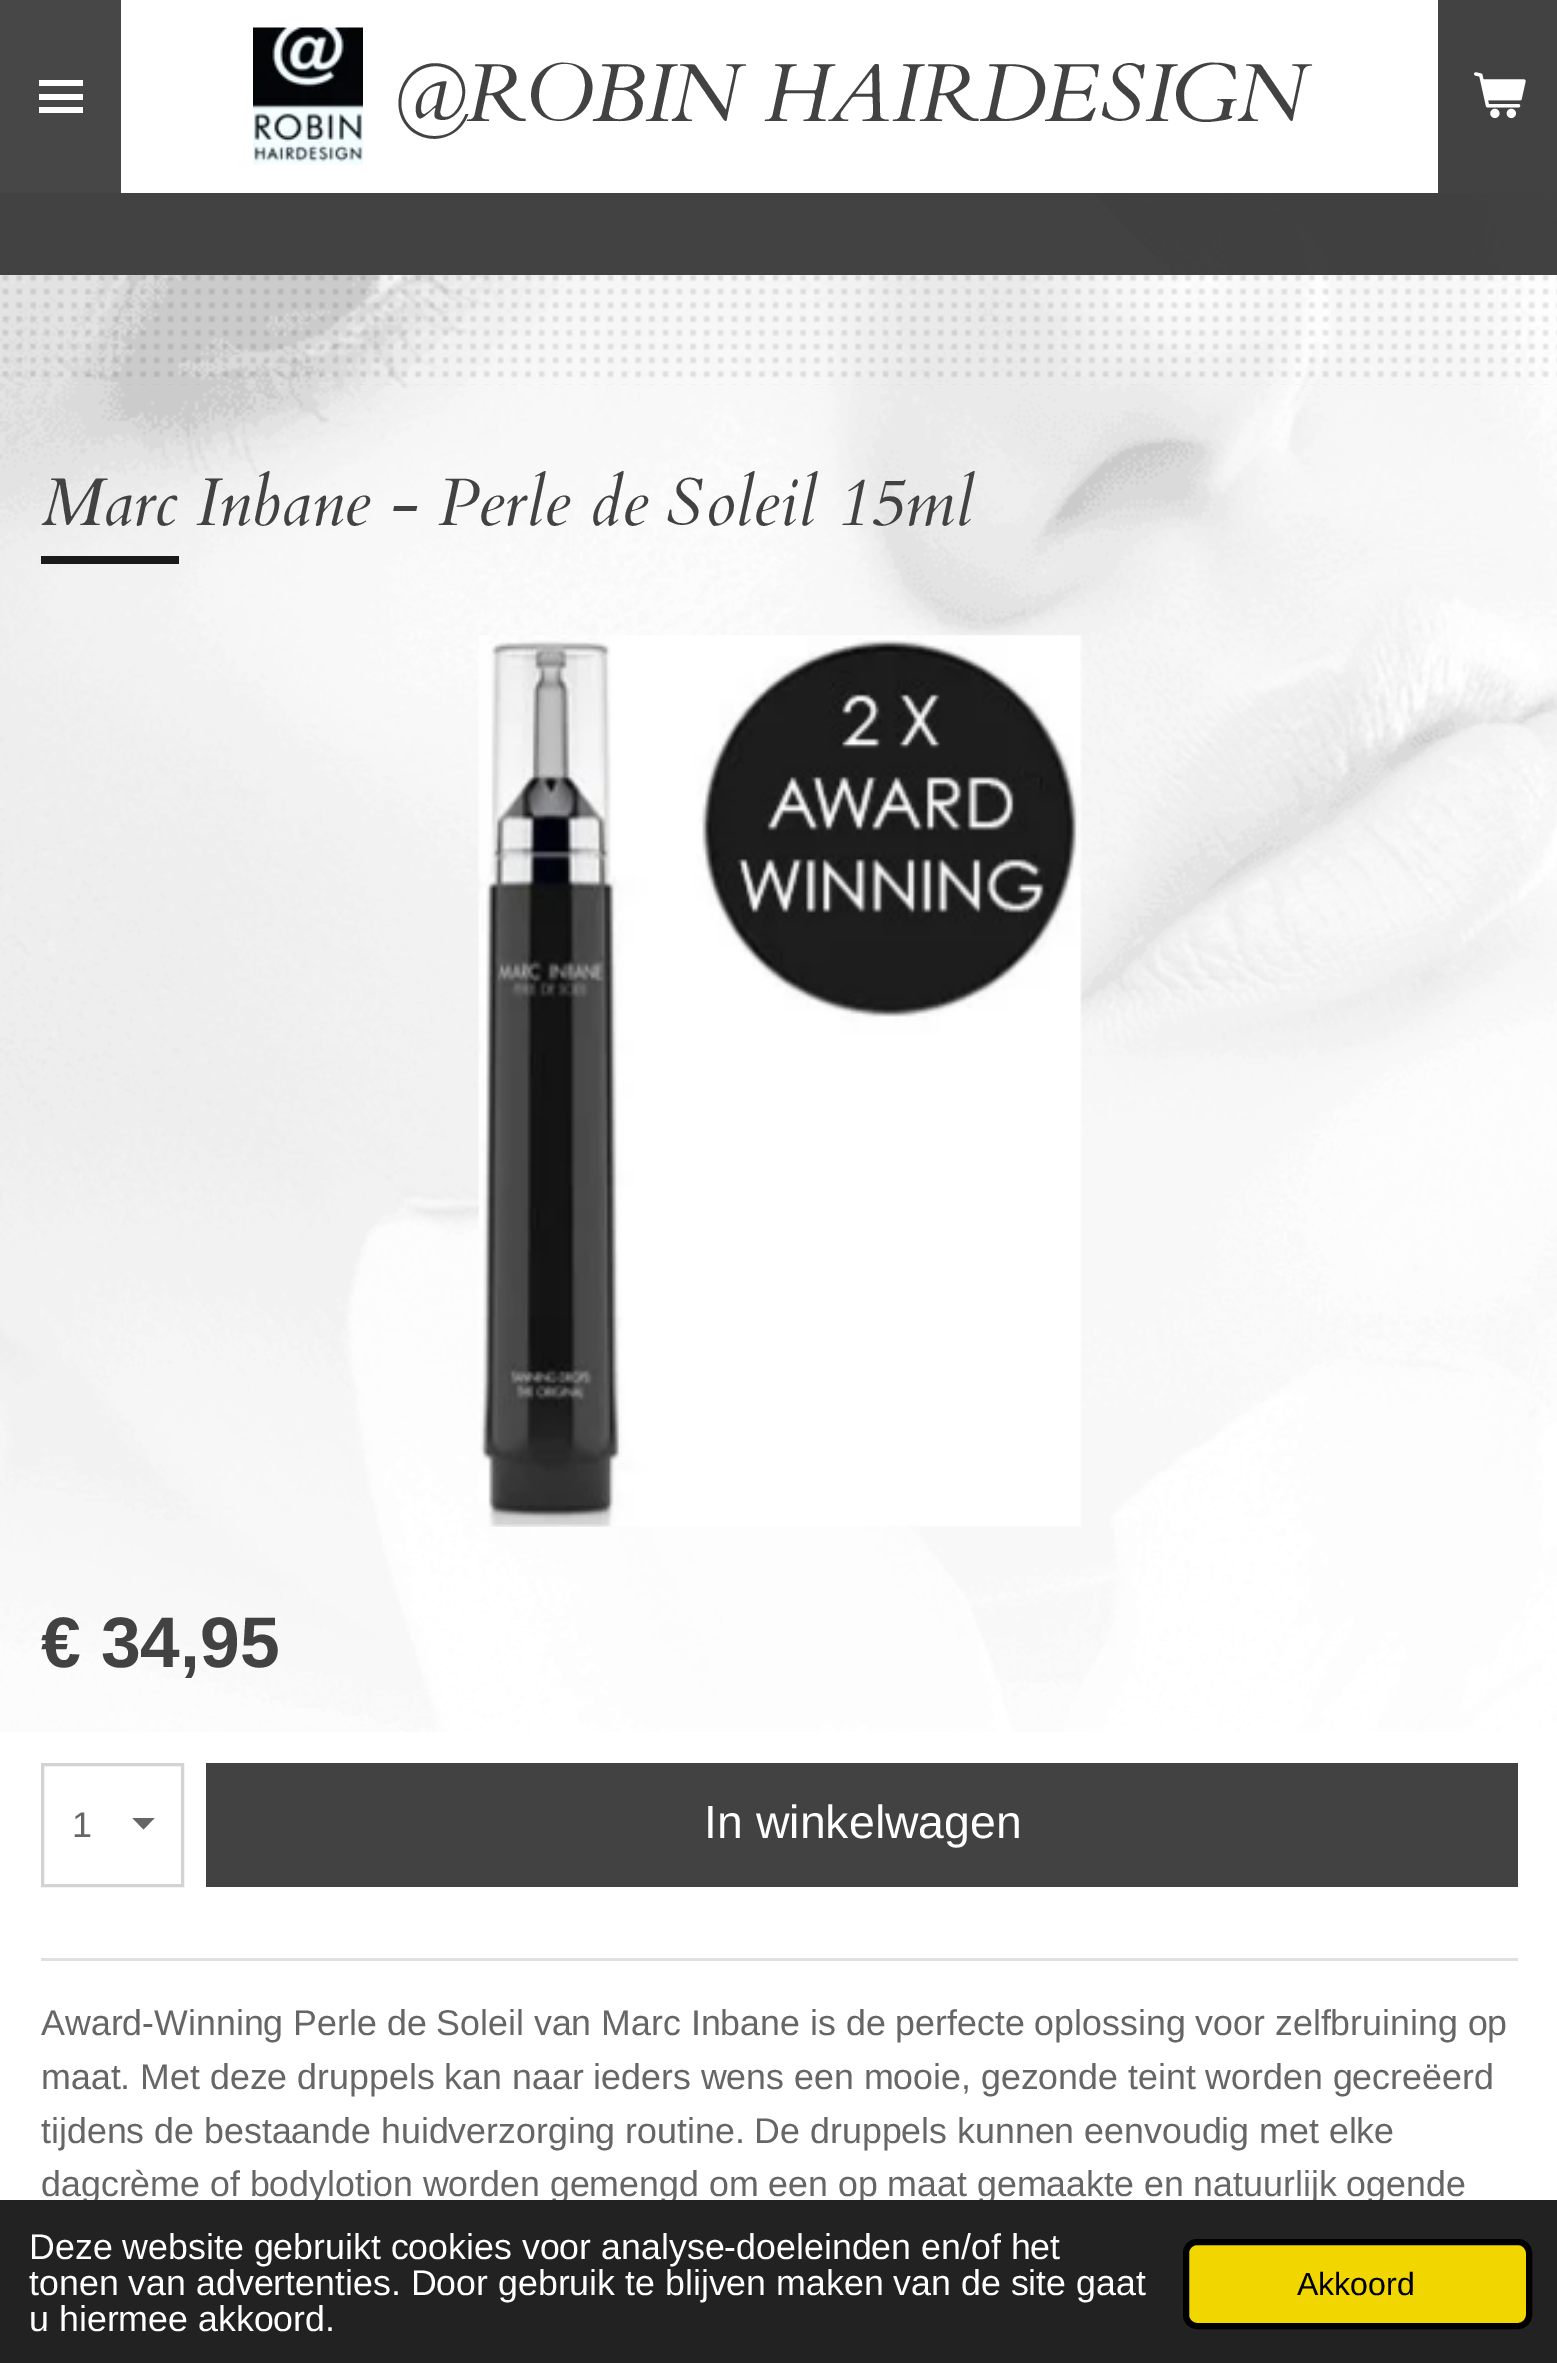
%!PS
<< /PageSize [1557 2363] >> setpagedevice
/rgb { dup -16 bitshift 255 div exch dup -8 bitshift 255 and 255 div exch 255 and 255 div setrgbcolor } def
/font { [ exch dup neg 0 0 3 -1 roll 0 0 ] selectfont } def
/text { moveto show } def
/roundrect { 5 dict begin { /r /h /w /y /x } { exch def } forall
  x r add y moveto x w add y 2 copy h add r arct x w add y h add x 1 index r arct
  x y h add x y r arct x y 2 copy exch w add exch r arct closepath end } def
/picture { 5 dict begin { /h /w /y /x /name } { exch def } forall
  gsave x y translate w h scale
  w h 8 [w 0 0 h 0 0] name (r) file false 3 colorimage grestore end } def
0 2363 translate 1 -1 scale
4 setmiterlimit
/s1 { /Cardo-Italic 82.5 font 16#424242 rgb } def
/s2 { /Cardo-Italic 67.4 font 16#424242 rgb } def
/s3 { /LiberationSans-Bold 71.5 font 16#424242 rgb } def
/s4 { /LiberationSans-Regular 35.75 font 16#666666 rgb } def
/s5 { /LiberationSans-Regular 46.5 font 16#FFFFFF rgb } def
/s6 { /LiberationSans-Regular 35.75 font 16#FFFFFF rgb } def
/s7 { /LiberationSans-Regular 32 font 16#000000 rgb } def
16#FFFFFF rgb
0 0 1557 2363 rectfill
16#474747 rgb
0 0 121 193 rectfill
16#FFFFFF rgb
39 94 44 6 rectfill
39 80 44 6 rectfill
39 107 44 6 rectfill
16#424242 rgb
1093 193 464 82 rectfill
(pic3.raw) 2 275 1555 110 picture
(pic4.raw) 0 193 1557 1539 picture
1092 275 moveto 1092 192 lineto 1174 275 lineto closepath fill
16#FFFFFF rgb
1092 192 1 1 rectfill
(pic1.raw) 253 27 110 138 picture
s1
(@ROBIN HAIRDESIGN) 390 121 text
1438 0 119 193 rectfill
(pic2.raw) 1474 72 52 47 picture
0 193 1092 82 rectfill
s2
(Marc Inbane - Perle de Soleil 15ml) 41 525 text
16#1A1A1A rgb
41 556 138 8 rectfill
(pic5.raw) 478 635 604 892 picture
s3
(€ 34,95) 41 1667 text
16#666666 rgb
143.5 1829.5 moveto 132.5 1818 lineto 154.5 1818 lineto closepath fill
16#D3D3D3 rgb
3 setlinewidth
42.5 1764.5 140 121 rectstroke
s4
(1) 72 1837 text
16#424242 rgb
206 1763 1312 124 rectfill
s5
(In winkelwagen) 704 1838 text
16#E0E0E0 rgb
41 1958 1477 3 rectfill
s4
(Award-Winning Perle de Soleil van Marc Inbane is de perfecte oplossing voor zelfbruining op) 41 2035 text
(maat. Met deze druppels kan naar ieders wens een mooie, gezonde teint worden gecreëerd) 41 2089 text
(tijdens de bestaande huidverzorging routine. De druppels kunnen eenvoudig met elke) 41 2143 text
(dagcrème of bodylotion worden gemengd om een op maat gemaakte en natuurlijk ogende) 41 2196 text
16#222222 rgb
0 2200 1557 163 rectfill
s6
(Deze website gebruikt cookies voor analyse-doeleinden en/of het) 29 2259 text
(tonen van advertenties. Door gebruik te blijven maken van de site gaat) 29 2295 text
(u hiermee akkoord.) 29 2331 text
16#F1D600 rgb
1186 2242 343 84 11 roundrect gsave fill grestore
16#000000 rgb
6 setlinewidth
stroke
s7
(Akkoord) 1297 2295 text
showpage
